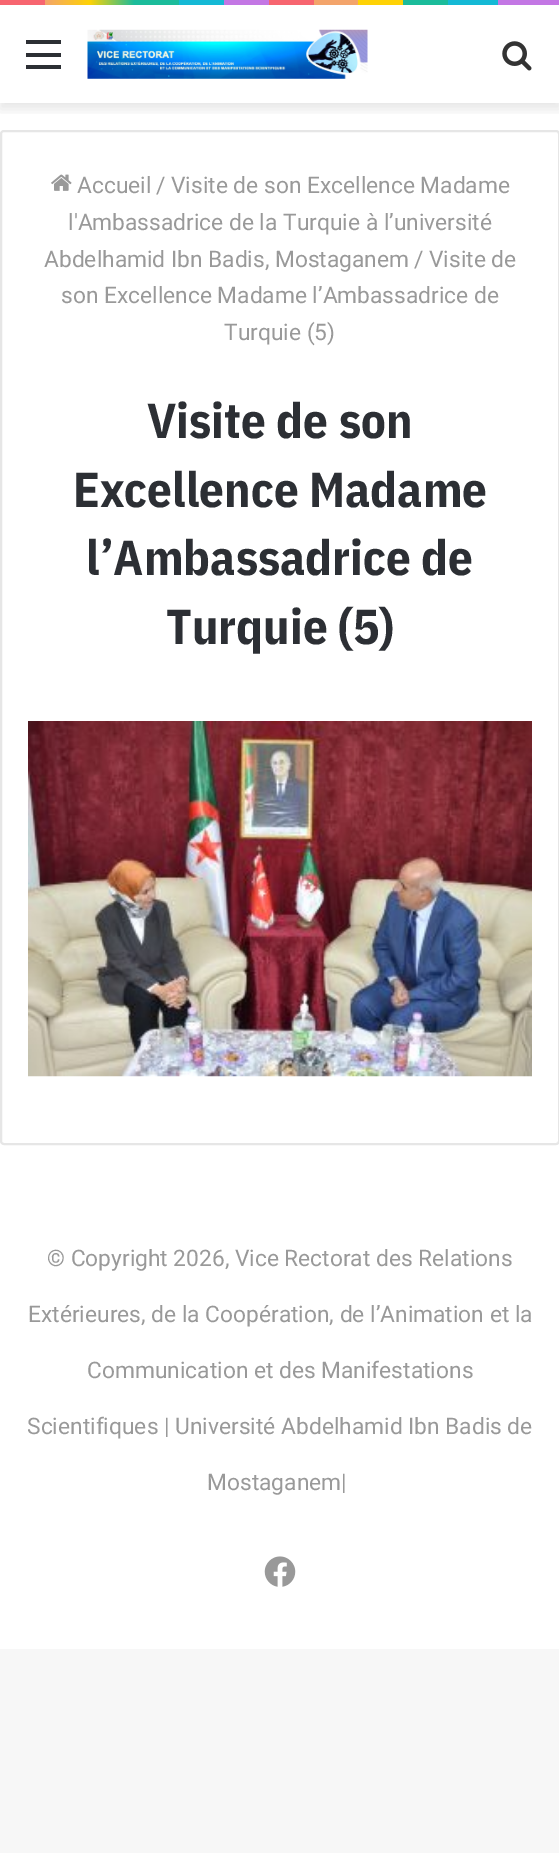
%!PS
<< /PageSize [559 1853] /PageUsesTransparency true >> setpagedevice
/rgb { dup -16 bitshift 255 div exch dup -8 bitshift 255 and 255 div exch 255 and 255 div setrgbcolor } def
/font { [ exch dup neg 0 0 3 -1 roll 0 0 ] selectfont } def
/text { moveto show } def
/alpha { dup .setfillconstantalpha .setstrokeconstantalpha } def
/roundrect { 5 dict begin { /r /h /w /y /x } { exch def } forall
  x r add y moveto x w add y 2 copy h add r arct x w add y h add x 1 index r arct
  x y h add x y r arct x y 2 copy exch w add exch r arct closepath end } def
/shadow { 12 dict begin { /a /b /q /h /w /y /x } { exch def } forall gsave /was 0 def
  9 -2 -9 { dup b mul 4 div /e exch def 1 sub .425 mul 2.718 exch exp 1 add a .99 .min exch div /now exch def
    1 1 now sub 1 was sub div sub alpha /was now def
    w h .min e 2 mul add 0 gt { x e sub y e sub w e 2 mul add h e 2 mul add
      q e add b .6 mul add w h .min 2 div e add .min 0 .max roundrect fill } if } for grestore end } def
/picture { 5 dict begin { /h /w /y /x /name } { exch def } forall
  gsave x y translate w h scale
  w h 8 [w 0 0 h 0 0] name (r) file false 3 colorimage grestore end } def
0 .pushpdf14devicefilter
0 1853 translate 1 -1 scale
4 setmiterlimit
/s1 { /Roboto-Regular 22.75 font 16#999999 rgb } def
/s2 { /IBMPlexSansCondensed-Bold 49 font 16#2C2F34 rgb } def
16#F7F7F7 rgb
0 0 559 1853 rectfill
16#FFFFFF rgb
0 5 559 1644 rectfill
gsave 0 0 moveto 559 0 lineto 559 5 lineto 0 5 lineto closepath clip newpath
<< /ShadingType 2 /ColorSpace /DeviceRGB /Coords [0 2.6 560 2.6] /Extend [true true] /Function << /FunctionType 3 /Domain [0 1] /Functions [<< /FunctionType 2 /Domain [0 1] /C0 [0.969 0.396 0.439] /C1 [0.969 0.396 0.439] /N 1 >> << /FunctionType 2 /Domain [0 1] /C0 [0.953 0.643 0.42] /C1 [1 0.824 0.02] /N 1 >> << /FunctionType 2 /Domain [0 1] /C0 [1 0.824 0.02] /C1 [0.106 0.737 0.608] /N 1 >> << /FunctionType 2 /Domain [0 1] /C0 [0.106 0.737 0.608] /C1 [0.106 0.737 0.608] /N 1 >> << /FunctionType 2 /Domain [0 1] /C0 [0.078 0.725 0.835] /C1 [0.078 0.725 0.835] /N 1 >> << /FunctionType 2 /Domain [0 1] /C0 [0.765 0.467 0.894] /C1 [0.765 0.467 0.894] /N 1 >> << /FunctionType 2 /Domain [0 1] /C0 [0.969 0.396 0.439] /C1 [0.969 0.396 0.439] /N 1 >> << /FunctionType 2 /Domain [0 1] /C0 [0.953 0.643 0.42] /C1 [0.953 0.643 0.42] /N 1 >> << /FunctionType 2 /Domain [0 1] /C0 [1 0.824 0.02] /C1 [1 0.824 0.02] /N 1 >> << /FunctionType 2 /Domain [0 1] /C0 [0.106 0.737 0.608] /C1 [0.106 0.737 0.608] /N 1 >> << /FunctionType 2 /Domain [0 1] /C0 [0.078 0.725 0.835] /C1 [0.078 0.725 0.835] /N 1 >> << /FunctionType 2 /Domain [0 1] /C0 [0.765 0.467 0.894] /C1 [0.765 0.467 0.894] /N 1 >>] /Bounds [0.08 0.16 0.24 0.32 0.4 0.48 0.56 0.64 0.72 0.8 0.89] /Encode [0 1 0 1 0 1 0 1 0 1 0 1 0 1 0 1 0 1 0 1 0 1 0 1] >> >> shfill grestore
gsave
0 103 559 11 rectclip
16#000000 rgb
0 11 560 98 0 6 0.1 shadow
grestore
16#2C2F34 rgb
26 53 35 4 rectfill
26 40 35 4 rectfill
26 65 35 4 rectfill
(pic1.raw) 87 29 281 50 picture
(pic2.raw) 502 41 30 30 picture
16#E6E6E6 rgb
2 setlinewidth
1 131 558 1013 3 roundrect stroke
(pic3.raw) 51 174 21 17 picture
s1
(Accueil) 77 193 text
(/) 156 193 text
(Visite de son Excellence Madame) 171 193 text
(l'Ambassadrice de la Turquie à l’université) 68 230 text
(Abdelhamid Ibn Badis, Mostaganem) 44 267 text
(/) 414 267 text
(Visite de) 429 267 text
(son Excellence Madame l’Ambassadrice de) 61 303 text
(Turquie \(5\)) 224 340 text
s2
(Visite de son) 147 438 text
(Excellence Madame) 73 507 text
(l’Ambassadrice de) 86 575 text
(Turquie \(5\)) 166 644 text
(pic4.raw) 28 721 504 356 picture
s1
(© Copyright 2026, Vice Rectorat des Relations) 47 1266 text
(Extérieures, de la Coopération, de l’Animation et la) 28 1322 text
(Communication et des Manifestations) 87 1378 text
(Scientifiques | Université Abdelhamid Ibn Badis de) 27 1434 text
(Mostaganem|) 207 1490 text
(pic5.raw) 264 1556 32 31 picture
.poppdf14devicefilter showpage
